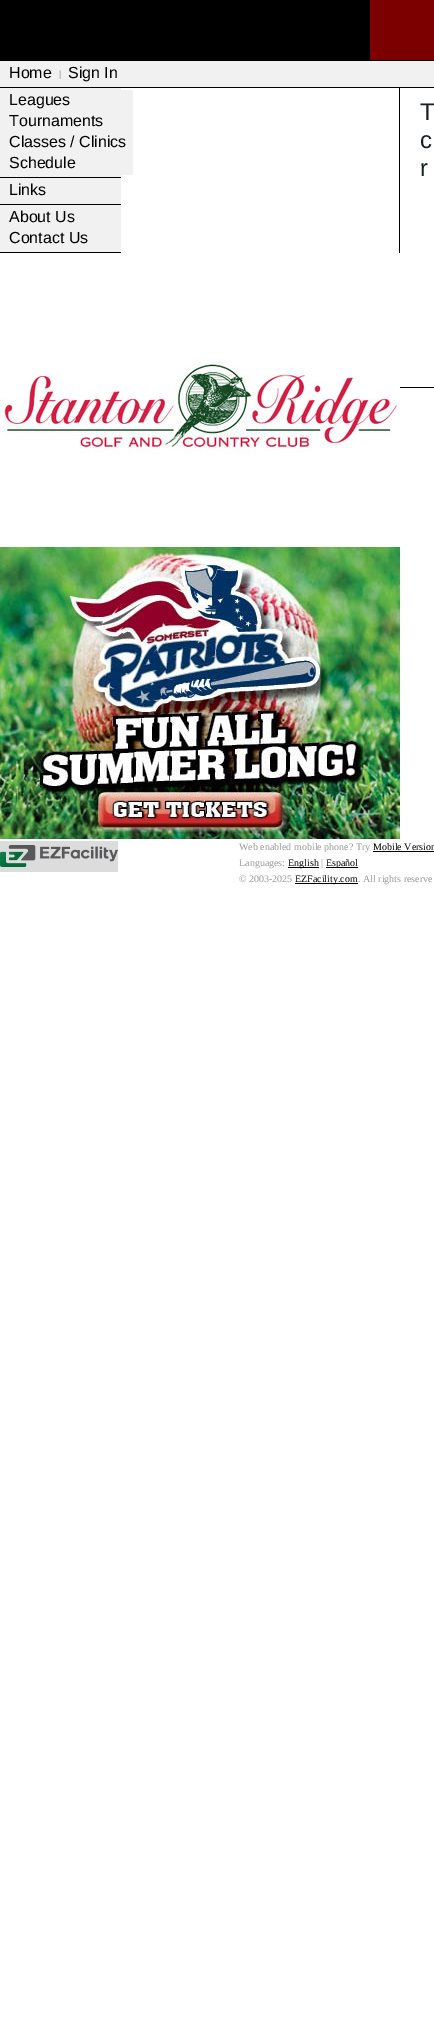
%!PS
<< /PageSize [434 2032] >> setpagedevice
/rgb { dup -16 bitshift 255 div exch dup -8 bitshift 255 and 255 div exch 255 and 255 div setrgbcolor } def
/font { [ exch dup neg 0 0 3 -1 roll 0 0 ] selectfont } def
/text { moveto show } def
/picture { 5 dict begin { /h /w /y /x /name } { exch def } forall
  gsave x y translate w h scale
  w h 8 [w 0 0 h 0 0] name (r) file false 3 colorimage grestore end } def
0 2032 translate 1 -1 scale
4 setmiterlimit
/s1 { /LiberationSans-Regular 16 font 16#000000 rgb } def
/s2 { /LiberationSans-Regular 9 font 16#999999 rgb } def
/s3 { /LiberationSans-Regular 24 font 16#182023 rgb } def
/s4 { /LiberationSerif-Regular 10 font 16#999999 rgb } def
/s5 { /LiberationSerif-Regular 10 font 16#000000 rgb } def
16#FFFFFF rgb
0 0 434 2032 rectfill
16#7D0000 rgb
370 0 64 60 rectfill
16#000000 rgb
0 0 370 60 rectfill
16#F1F1F1 rgb
0 61 434 26 rectfill
16#000000 rgb
0 60 434 1 rectfill
0 87 434 1 rectfill
s1
(Home) 9 78 text
s2
(|) 59 77 text
s1
(Sign In) 68 78 text
399 88 1 165 rectfill
16#F1F1F1 rgb
0 88 121 164 rectfill
16#000000 rgb
0 177 121 1 rectfill
16#F1F1F1 rgb
121 90 12 85 rectfill
s1
(Leagues) 9 105 text
(Tournaments) 9 126 text
(Classes / Clinics) 9 147 text
(Schedule) 9 168 text
0 204 121 1 rectfill
(Links) 9 195 text
0 252 121 1 rectfill
(About Us) 9 222 text
(Contact Us) 9 243 text
(pic1.raw) 0 358 399 96 picture
(pic2.raw) 0 547 400 292 picture
400 387 34 1 rectfill
s3
(T) 420 120 text
(c) 420 148 text
(r) 420 176 text
(pic3.raw) 0 841 118 31 picture
s4
(Web enabled mobile phone? Try) 239 850 text
s5
(Mobile Version) 373 850 text
373 851 61 1 rectfill
s4
(Languages:) 239 866 text
16#000000 rgb
288 867 31 1 rectfill
(English) 288 866 text
s4
(|) 321 866 text
16#000000 rgb
326 867 32 1 rectfill
(Español) 326 866 text
s4
(© 2003-2025) 239 882 text
16#000000 rgb
295 883 63 1 rectfill
(EZFacility.com) 295 882 text
s4
(. All rights reserve) 358 882 text
showpage
